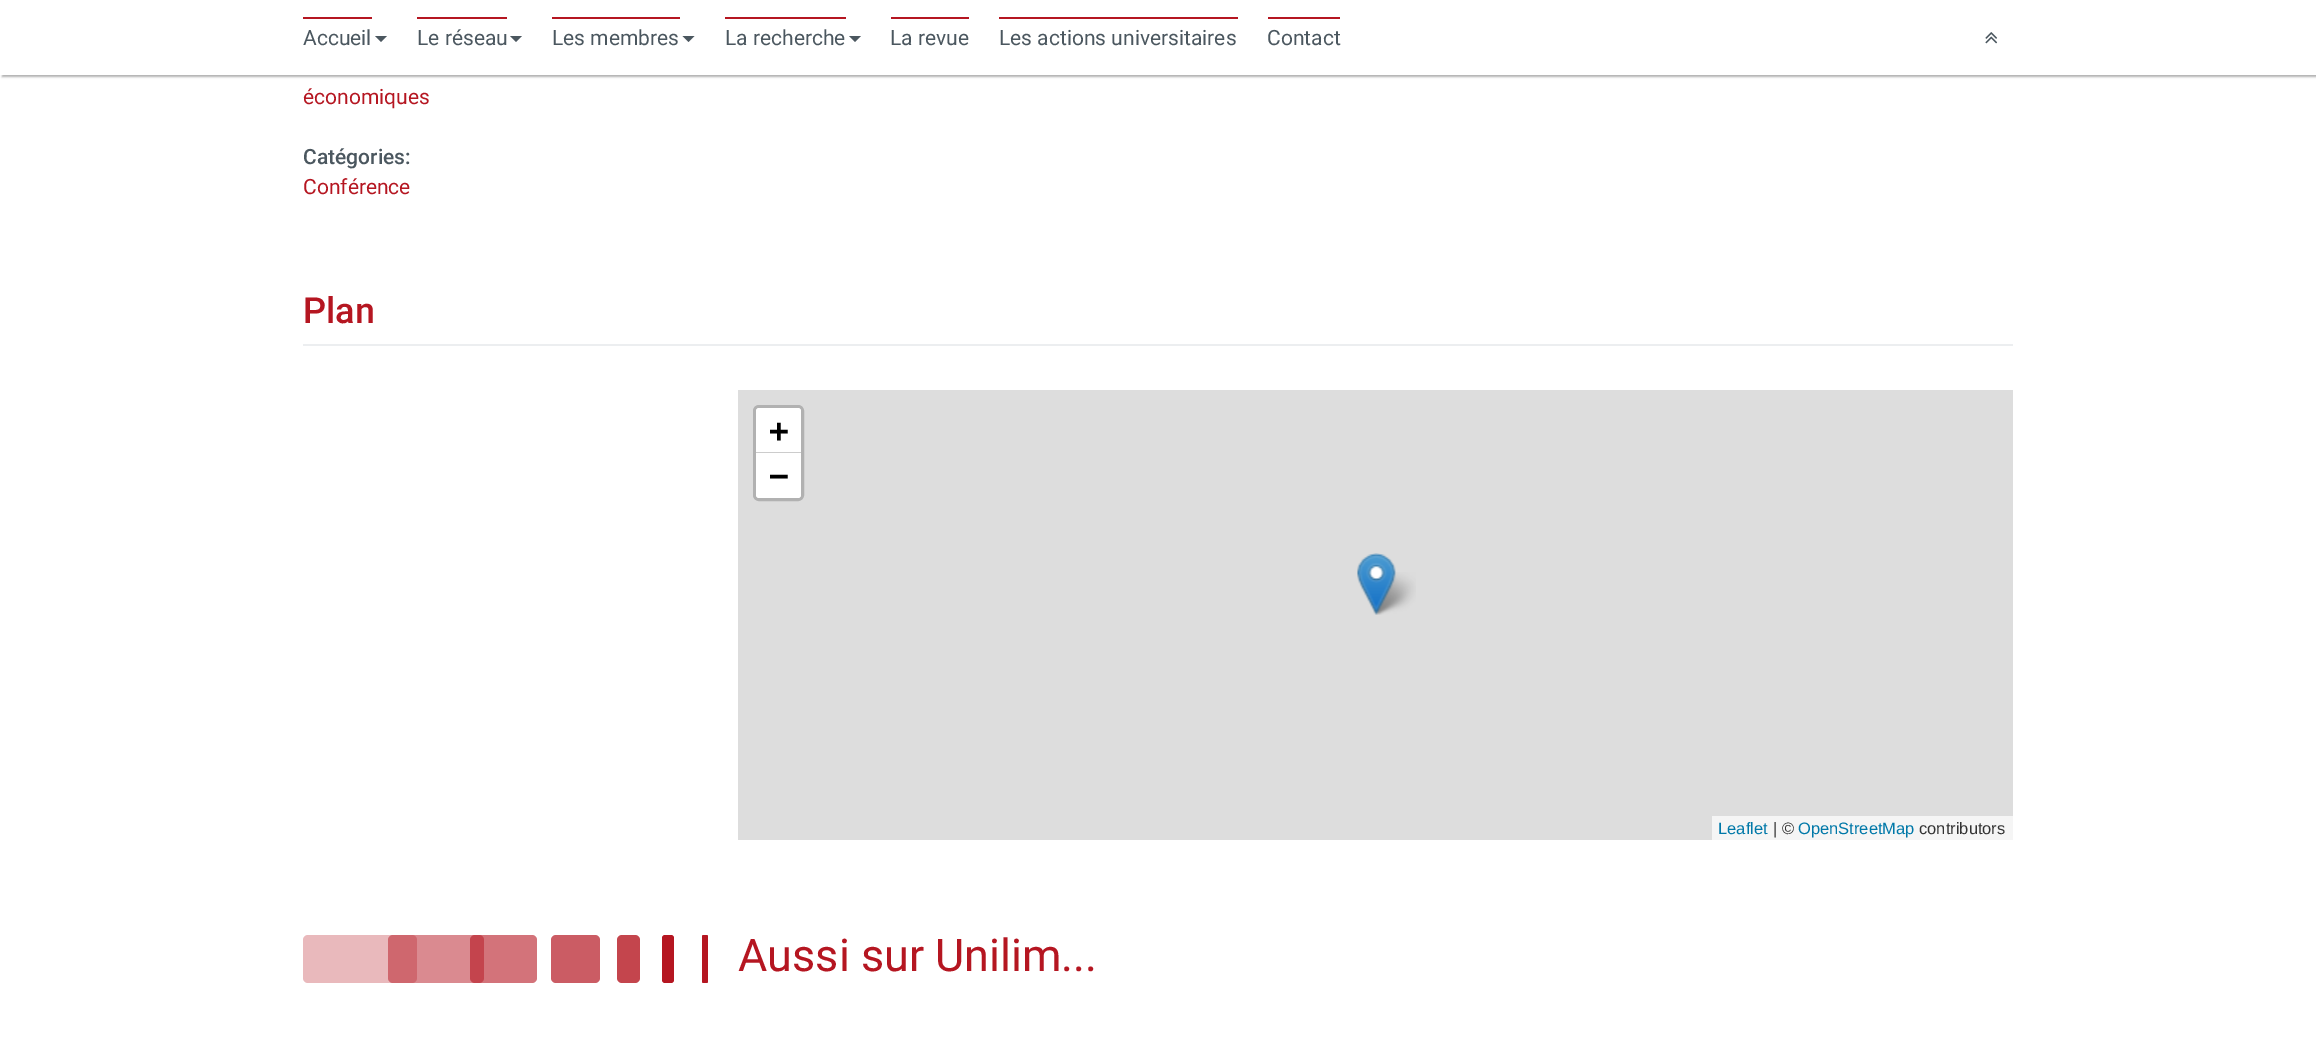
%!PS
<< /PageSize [2316 1042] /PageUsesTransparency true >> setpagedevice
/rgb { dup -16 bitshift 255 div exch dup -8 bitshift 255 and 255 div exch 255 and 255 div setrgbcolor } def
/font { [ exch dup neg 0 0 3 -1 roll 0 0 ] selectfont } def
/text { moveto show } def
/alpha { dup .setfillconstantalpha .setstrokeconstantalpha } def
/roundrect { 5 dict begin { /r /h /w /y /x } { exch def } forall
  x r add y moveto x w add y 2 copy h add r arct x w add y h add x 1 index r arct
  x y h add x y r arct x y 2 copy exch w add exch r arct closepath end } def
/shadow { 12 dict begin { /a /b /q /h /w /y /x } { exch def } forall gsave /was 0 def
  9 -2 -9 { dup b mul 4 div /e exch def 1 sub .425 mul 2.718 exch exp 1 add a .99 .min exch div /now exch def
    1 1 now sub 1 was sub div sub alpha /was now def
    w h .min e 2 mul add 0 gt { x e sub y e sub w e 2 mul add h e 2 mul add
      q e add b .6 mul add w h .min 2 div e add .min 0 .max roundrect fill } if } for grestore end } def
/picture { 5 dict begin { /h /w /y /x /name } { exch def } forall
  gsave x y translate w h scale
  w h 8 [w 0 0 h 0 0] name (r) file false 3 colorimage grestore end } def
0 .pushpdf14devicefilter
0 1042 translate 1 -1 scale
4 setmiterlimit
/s1 { /Roboto-Regular 21 font 16#4B575F rgb } def
/s2 { /Roboto-Regular 21 font 16#B51621 rgb } def
/s3 { /Roboto-Medium 21 font 16#4B575F rgb } def
/s4 { /Roboto-Medium 36 font 16#B51621 rgb } def
/s5 { /DejaVuSansMono-Bold 33 font 16#000000 rgb } def
/s6 { /LiberationSans-Regular 16.5 font 16#0078A8 rgb } def
/s7 { /LiberationSans-Regular 16.5 font 16#333333 rgb } def
/s8 { /Roboto-Regular 45 font 16#B51621 rgb } def
16#FFFFFF rgb
0 0 2316 1042 rectfill
16#B0B0B0 rgb
2 2 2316 75 0 1 1 shadow
16#FFFFFF rgb
0 0 2316 75 rectfill
s1
(Accueil) 303 45 text
16#B51621 rgb
303 17 69 2 rectfill
16#4B575F rgb
375 36 moveto 387 36 lineto 381 42 lineto closepath fill
(Le réseau) 417 45 text
16#B51621 rgb
417 17 90 2 rectfill
16#4B575F rgb
510 36 moveto 522 36 lineto 516 42 lineto closepath fill
(Les membres) 552 45 text
16#B51621 rgb
552 17 128 2 rectfill
16#4B575F rgb
682.5 36 moveto 694.5 36 lineto 688.5 42 lineto closepath fill
(La recherche) 725 45 text
16#B51621 rgb
725 17 121 2 rectfill
16#4B575F rgb
849 36 moveto 861 36 lineto 855 42 lineto closepath fill
(La revue) 890 45 text
16#B51621 rgb
891 17 78 2 rectfill
s1
(Les actions universitaires) 999 45 text
16#B51621 rgb
999 17 239 2 rectfill
s1
(Contact) 1267 45 text
16#B51621 rgb
1268 17 72 2 rectfill
(pic1.raw) 1985 32 13 12 picture
(économiques) 303 104 text
s3
(Catégories:) 303 164 text
s2
(Conférence) 303 194 text
16#ECEEF0 rgb
303 344 1710 2 rectfill
s4
(Plan) 303 323 text
16#DDDDDD rgb
738 390 1275 450 rectfill
16#B1B1B1 rgb
3 setlinewidth
754.5 406.5 48 93 4.5 roundrect stroke
16#FFFFFF rgb
759 408 moveto 798 408 lineto 799.5 408 801 409.5 801 411 curveto 801 453 lineto 756 453 lineto 756 411 lineto 756 409.5 757.5 408 759 408 curveto closepath fill
16#CCCCCC rgb
756 452 45 1 rectfill
s5
(+) 769 442 text
16#FFFFFF rgb
756 453 moveto 801 453 lineto 801 495 lineto 801 496.5 799.5 498 798 498 curveto 759 498 lineto 757.5 498 756 496.5 756 495 curveto closepath fill
s5
(−) 769 487 text
16#F5F5F5 rgb
1712 816 301 24 rectfill
s6
(Leaflet) 1718 834 text
s7
(| ©) 1773 834 text
s6
(OpenStreetMap) 1798 834 text
s7
(contributors) 1919 834 text
(pic3.raw) 1371 572 45 43 picture
(pic2.raw) 1357 553 39 62 picture
16#E9B9BC rgb
303 935 114 48 5 roundrect fill
0.5 alpha
16#B51621 rgb
388 935 96 48 5 roundrect fill
0.6 alpha
470 935 67 48 5 roundrect fill
1 alpha
16#CB5C64 rgb
551 935 49 48 5 roundrect fill
16#C4454D rgb
617 935 23 48 5 roundrect fill
16#B51621 rgb
662 935 12 48 3 roundrect fill
702 935 6 48 1.5 roundrect fill
s8
(Aussi sur Unilim...) 738 971 text
.poppdf14devicefilter showpage
